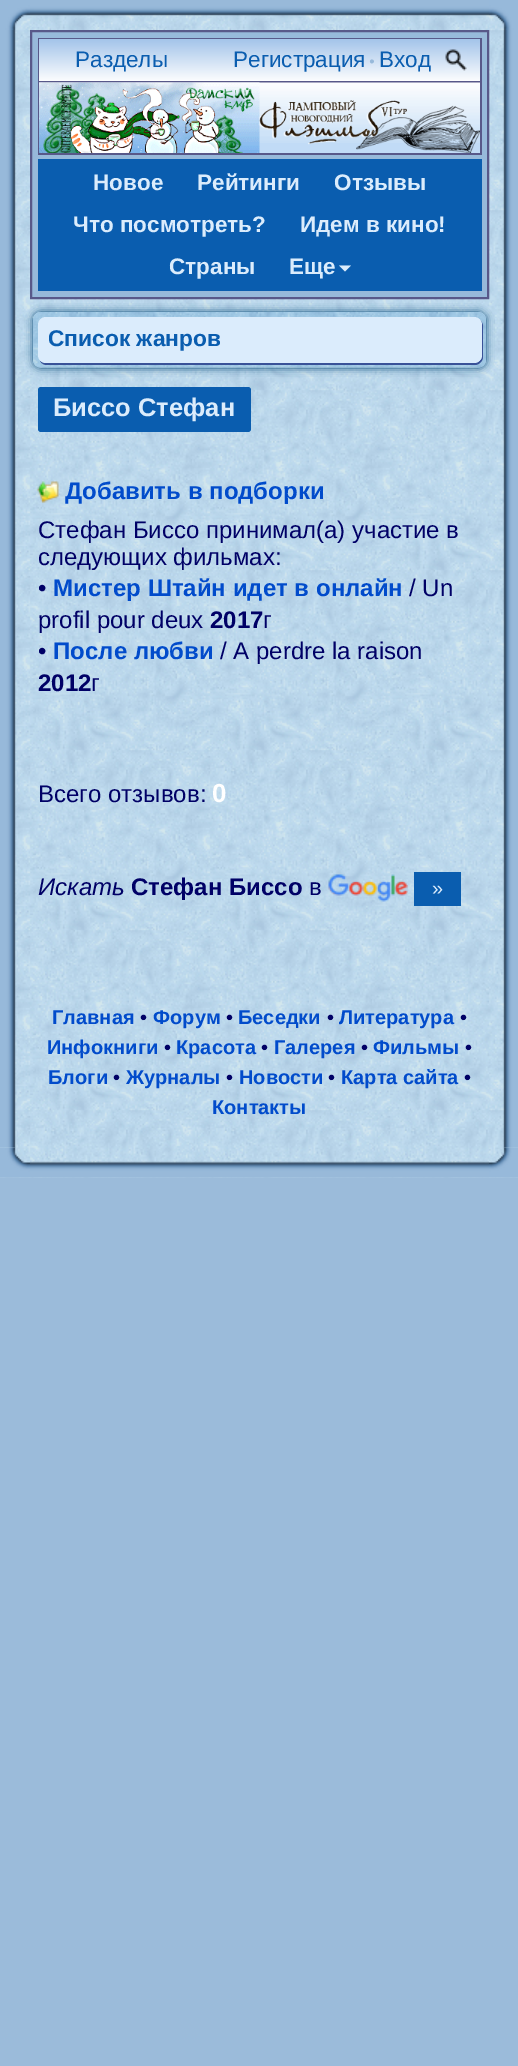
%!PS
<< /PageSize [518 2066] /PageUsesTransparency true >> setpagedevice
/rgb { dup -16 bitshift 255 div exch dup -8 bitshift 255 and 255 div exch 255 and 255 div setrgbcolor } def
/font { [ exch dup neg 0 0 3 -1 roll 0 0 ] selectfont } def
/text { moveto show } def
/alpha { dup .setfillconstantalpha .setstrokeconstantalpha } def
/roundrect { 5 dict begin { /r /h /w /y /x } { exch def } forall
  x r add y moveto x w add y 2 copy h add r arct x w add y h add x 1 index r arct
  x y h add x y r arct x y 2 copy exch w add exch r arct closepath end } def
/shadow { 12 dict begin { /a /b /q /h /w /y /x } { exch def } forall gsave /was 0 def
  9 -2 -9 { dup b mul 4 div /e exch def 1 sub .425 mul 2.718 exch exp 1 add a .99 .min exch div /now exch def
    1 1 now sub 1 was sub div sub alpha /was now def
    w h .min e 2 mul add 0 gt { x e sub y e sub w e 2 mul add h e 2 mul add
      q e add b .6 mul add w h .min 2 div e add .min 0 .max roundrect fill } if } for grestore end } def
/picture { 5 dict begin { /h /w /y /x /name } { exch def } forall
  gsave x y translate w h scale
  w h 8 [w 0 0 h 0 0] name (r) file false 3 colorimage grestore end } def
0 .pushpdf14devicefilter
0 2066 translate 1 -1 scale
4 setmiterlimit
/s1 { /LiberationSans-Regular 22.5 font 16#0A5DAF rgb } def
/s2 { /LiberationSerif-Regular 17 font 16#97B9DA rgb } def
/s3 { /LiberationSans-Bold 22.5 font 16#DBECFC rgb } def
/s4 { /LiberationSans-Bold 22.75 font 16#0A5DAF rgb } def
/s5 { /LiberationSans-Bold 25.5 font 16#DBECFC rgb } def
/s6 { /LiberationSans-Bold 24 font 16#014BCB rgb } def
/s7 { /LiberationSans-Regular 24 font 16#000066 rgb } def
/s8 { /LiberationSans-Bold 24 font 16#000066 rgb } def
/s9 { /LiberationSans-Bold 26 font 16#FFFFFF rgb } def
/s10 { /LiberationSans-Italic 24 font 16#000066 rgb } def
/s11 { /LiberationSans-Regular 20 font 16#DBECFC rgb } def
/s12 { /LiberationSans-Bold 20 font 16#014BCB rgb } def
/s13 { /LiberationSans-Regular 20 font 16#000066 rgb } def
16#9BBBDA rgb
0 0 518 2066 rectfill
(pic1.raw) 0 14 518 1164 picture
(pic2.raw) 0 0 518 1178 picture
16#97B9DA rgb
31 31 moveto 488 31 lineto 488 298 lineto 31 298 lineto closepath gsave fill grestore
16#585889 rgb
2 setlinewidth
stroke
38 38 444 117 rectfill
gsave 39 39 moveto 480 39 lineto 480 81 lineto 39 81 lineto closepath clip newpath
<< /ShadingType 2 /ColorSpace /DeviceRGB /Coords [260 39 260 81] /Extend [true true] /Function << /FunctionType 2 /Domain [0 1] /C0 [0.639 0.769 0.918] /C1 [0.988 0.992 0.996] /N 1 >> >> shfill grestore
s1
(Разделы) 75 67 text
(Регистрация) 233 67 text
s2
(•) 369 67 text
s1
(Вход) 379 67 text
(pic3.raw) 445 49 22 22 picture
16#C1DBF6 rgb
259 143 221 10 rectfill
(pic4.raw) 39 82 441 61 picture
(pic5.raw) 39 82 221 71 picture
(pic6.raw) 259 100 221 53 picture
16#0A5DAF rgb
38 159 444 132 rectfill
s3
(Новое) 93 190 text
(Рейтинги) 197 190 text
(Отзывы) 334 190 text
(Что посмотреть?) 73 232 text
(Идем в кино!) 300 232 text
(Страны) 169 274 text
(Еще) 289 274 text
339 265.5 moveto 351 265.5 lineto 345 271.5 lineto closepath fill
16#034775 rgb
33 312 453 56 8 4 1 shadow
(pic7.raw) 33 312 453 56 picture
16#395298 rgb
40 361 moveto 42 364 44 365 47 365 curveto 475 365 lineto 479 365 483 361 483 357 curveto 483 326 lineto 483 324 482 322 480 320 curveto 481 321 482 323 482 324 curveto 482 356 lineto 482 360 478 363 474 363 curveto 45 363 lineto 43 363 42 362 40 361 curveto closepath fill
16#DBECFC rgb
38 317 444 46 8 roundrect fill
s4
(Список жанров) 48 346 text
38 387 213 45 3 roundrect fill
s5
(Биссо Стефан) 53 416 text
(pic8.raw) 37 481 22 22 picture
s6
(Добавить в подборки) 65 499 text
s7
(Стефан Биссо принимал\(а\) участие в) 38 538 text
(следующих фильмах:) 38 565 text
(•) 38 596 text
s6
(Мистер Штайн идет в онлайн) 53 596 text
s7
(/ Un) 409 596 text
(profil pour deux) 38 628 text
s8
(2017) 210 628 text
s7
(г) 263 628 text
(•) 38 659 text
s6
(После любви) 53 659 text
s7
(/ A perdre la raison) 220 659 text
s8
(2012) 38 691 text
s7
(г) 91 691 text
(Всего отзывов:) 38 802 text
s9
(0) 212 802 text
s10
(Искать) 38 895 text
s8
(Стефан Биссо) 131 895 text
s7
(в) 309 895 text
(pic9.raw) 328 874 80 28 picture
16#0A5DAF rgb
414 872 47 34 rectfill
s11
(») 432 895 text
s12
(Главная) 52 1024 text
s13
(•) 140 1024 text
s12
(Форум) 153 1024 text
s13
(•) 226 1024 text
s12
(Беседки) 238 1024 text
s13
(•) 327 1024 text
s12
(Литература) 339 1024 text
s13
(•) 460 1024 text
s12
(Инфокниги) 47 1054 text
s13
(•) 164 1054 text
s12
(Красота) 176 1054 text
s13
(•) 261 1054 text
s12
(Галерея) 274 1054 text
s13
(•) 361 1054 text
s12
(Фильмы) 373 1054 text
s13
(•) 465 1054 text
s12
(Блоги) 48 1084 text
s13
(•) 113 1084 text
s12
(Журналы) 126 1084 text
s13
(•) 226 1084 text
s12
(Новости) 239 1084 text
s13
(•) 328 1084 text
s12
(Карта сайта) 341 1084 text
s13
(•) 464 1084 text
s12
(Контакты) 212 1114 text
.poppdf14devicefilter showpage
